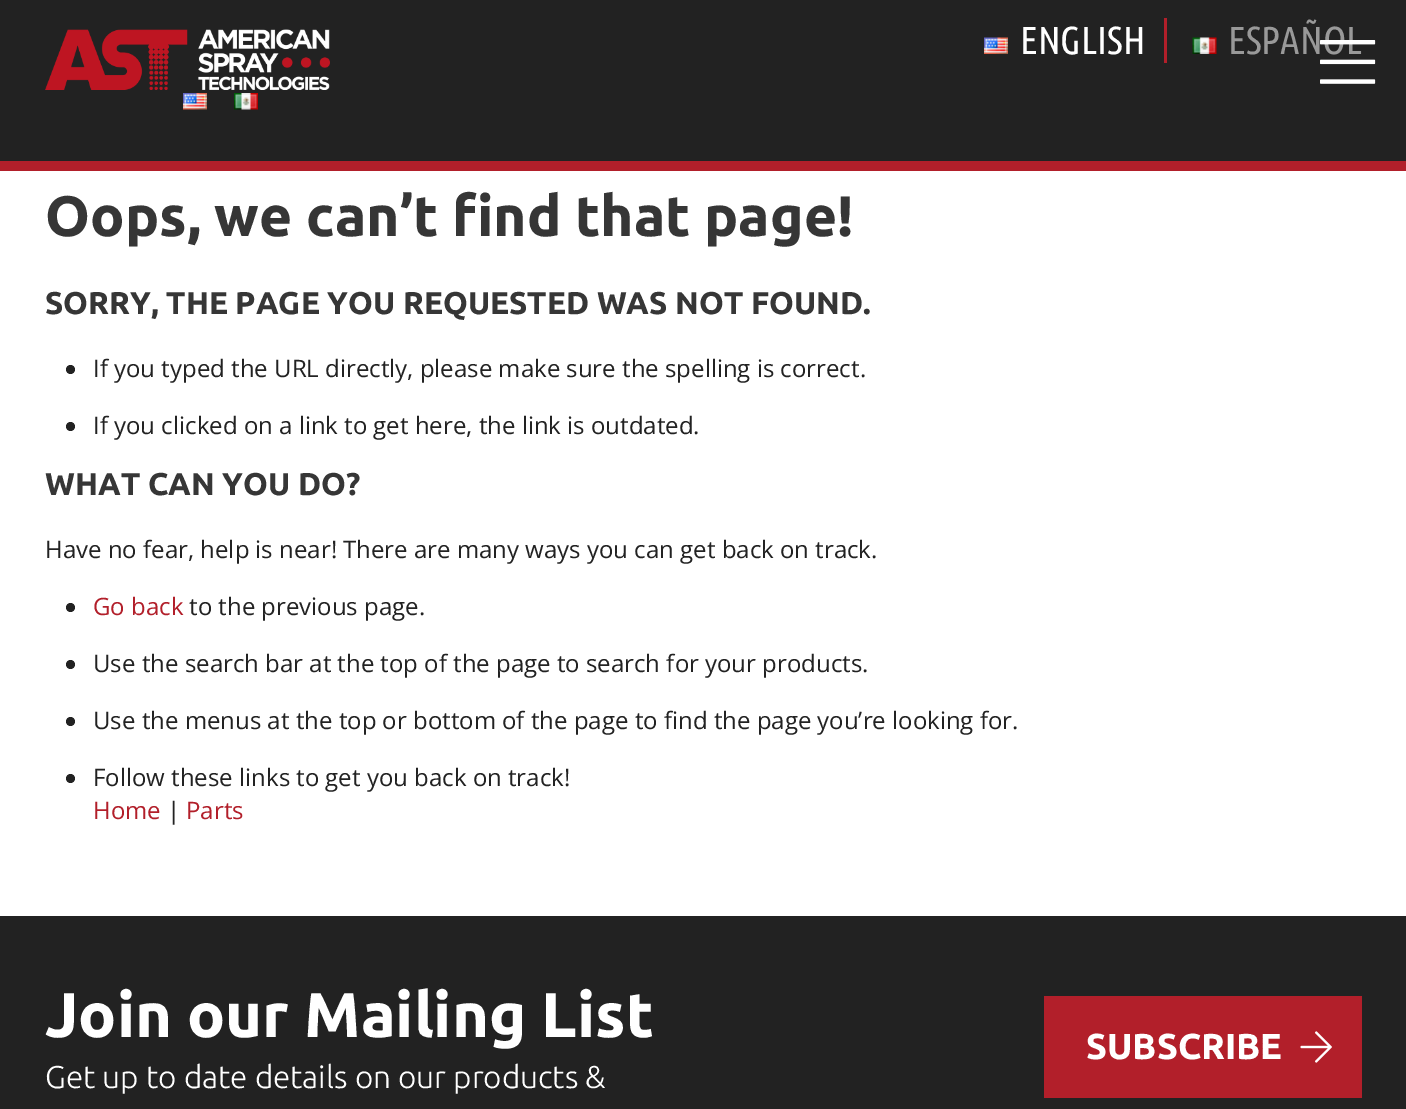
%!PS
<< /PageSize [1406 1109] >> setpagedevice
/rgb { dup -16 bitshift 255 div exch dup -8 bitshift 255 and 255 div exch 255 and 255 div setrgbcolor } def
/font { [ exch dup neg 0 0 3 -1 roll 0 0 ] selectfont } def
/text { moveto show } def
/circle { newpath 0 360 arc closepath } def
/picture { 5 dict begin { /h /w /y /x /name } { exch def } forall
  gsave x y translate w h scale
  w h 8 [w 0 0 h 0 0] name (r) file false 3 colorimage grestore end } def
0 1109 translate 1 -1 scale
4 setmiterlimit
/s1 { /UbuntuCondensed-Regular 39 font 16#FFFFFF rgb } def
/s2 { /UbuntuCondensed-Regular 39 font 16#999999 rgb } def
/s3 { /Ubuntu-Bold 57 font 16#363636 rgb } def
/s4 { /Ubuntu-Bold 31.5 font 16#363636 rgb } def
/s5 { /OpenSans-Regular 24 font 16#222222 rgb } def
/s6 { /OpenSans-Regular 24 font 16#B21F2A rgb } def
/s7 { /Ubuntu-Bold 63 font 16#FFFFFF rgb } def
/s8 { /Ubuntu-Light 31.5 font 16#FFFFFF rgb } def
/s9 { /Ubuntu-Bold 36 font 16#FFFFFF rgb } def
16#FFFFFF rgb
0 0 1406 1109 rectfill
16#222222 rgb
0 0 1406 161 rectfill
16#B21F2A rgb
0 161 1406 10 rectfill
(pic1.raw) 45 29 285 61 picture
(pic2.raw) 183 93 24 17 picture
(pic3.raw) 234 93 24 17 picture
1164 18 3 45 rectfill
(pic4.raw) 984 37 24 17 picture
s1
(ENGLISH) 1020 54 text
(pic5.raw) 1192 37 25 17 picture
s2
(ESPAÑOL) 1228 54 text
(pic6.raw) 1320 40 56 44 picture
s3
(Oops, we can’t find that page!) 45 236 text
s4
(SORRY, THE PAGE YOU REQUESTED WAS NOT FOUND.) 45 314 text
16#222222 rgb
70.5 369.5 4.5 circle fill
s5
(If you typed the URL directly, please make sure the spelling is correct.) 93 377 text
70.5 426.5 4.5 circle fill
(If you clicked on a link to get here, the link is outdated.) 93 434 text
s4
(WHAT CAN YOU DO?) 45 495 text
s5
(Have no fear, help is near! There are many ways you can get back on track.) 45 558 text
70.5 607.5 4.5 circle fill
s6
(Go back) 93 615 text
s5
(to the previous page.) 189 615 text
70.5 664.5 4.5 circle fill
(Use the search bar at the top of the page to search for your products.) 93 672 text
70.5 721.5 4.5 circle fill
(Use the menus at the top or bottom of the page to find the page you’re looking for.) 93 729 text
70.5 778.5 4.5 circle fill
(Follow these links to get you back on track!) 93 786 text
s6
(Home) 93 819 text
s5
(|) 167 819 text
s6
(Parts) 186 819 text
16#222222 rgb
0 916 1406 193 rectfill
s7
(Join our Mailing List) 45 1037 text
s8
(Get up to date details on our products &) 45 1088 text
16#B21F2A rgb
1044 996 318 102 rectfill
s9
(SUBSCRIBE) 1086 1059 text
(pic7.raw) 1300 1031 32 32 picture
showpage
